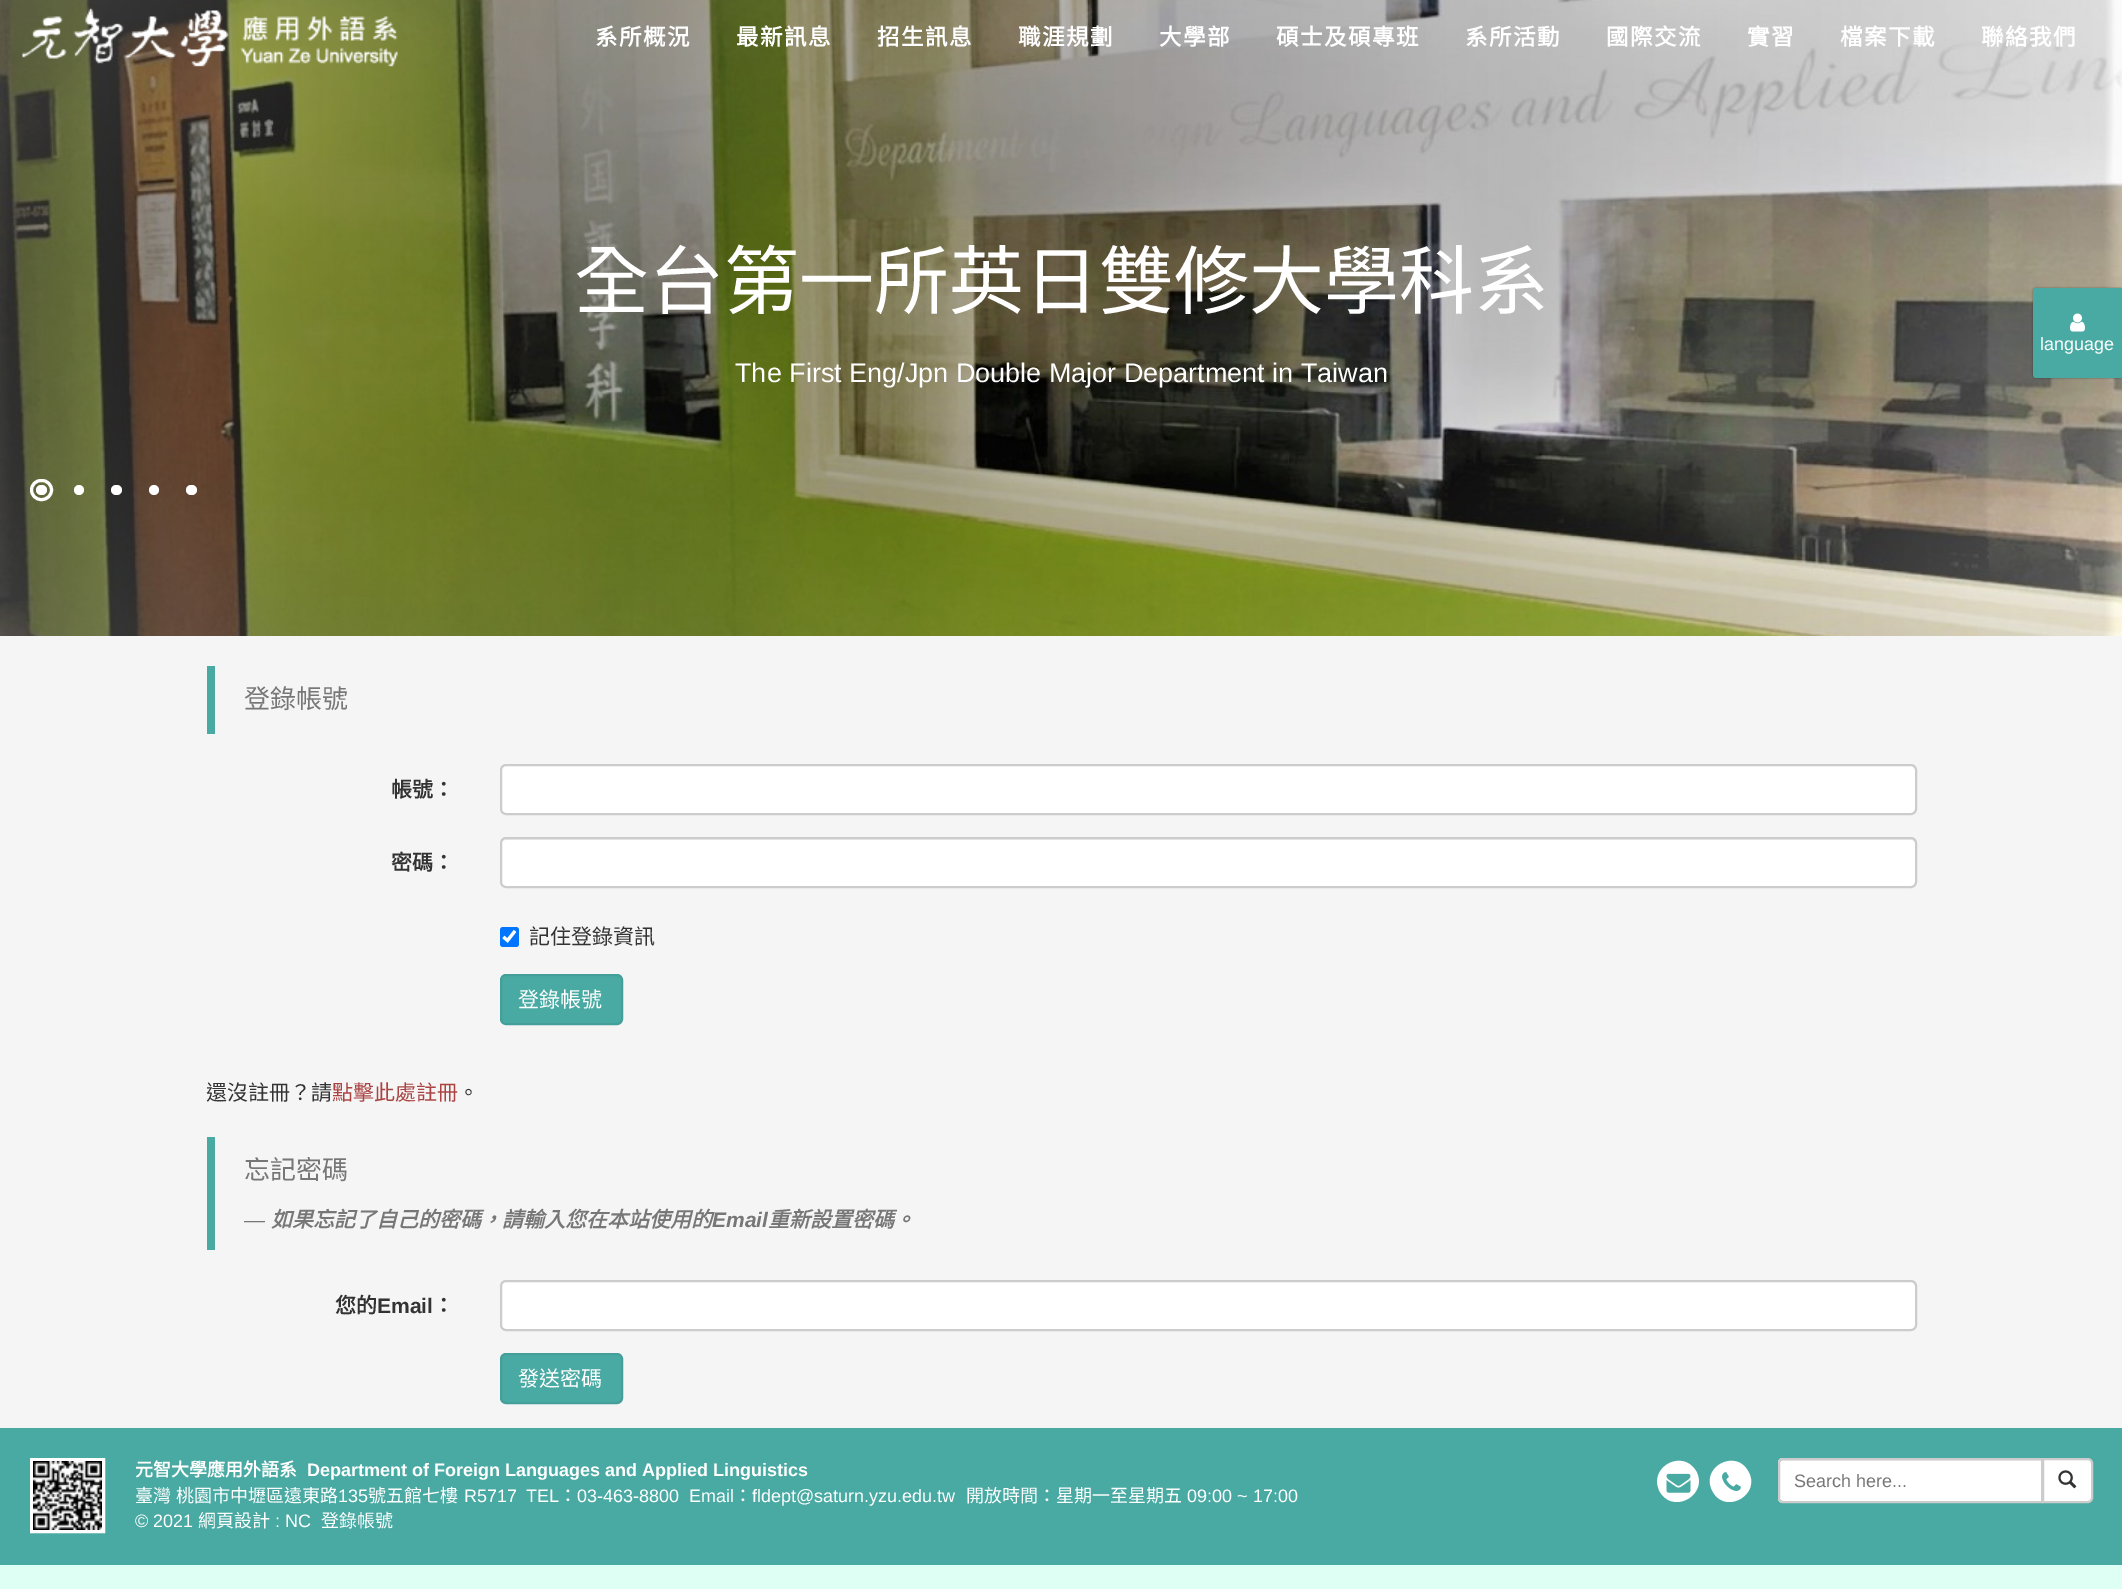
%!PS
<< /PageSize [2122 1589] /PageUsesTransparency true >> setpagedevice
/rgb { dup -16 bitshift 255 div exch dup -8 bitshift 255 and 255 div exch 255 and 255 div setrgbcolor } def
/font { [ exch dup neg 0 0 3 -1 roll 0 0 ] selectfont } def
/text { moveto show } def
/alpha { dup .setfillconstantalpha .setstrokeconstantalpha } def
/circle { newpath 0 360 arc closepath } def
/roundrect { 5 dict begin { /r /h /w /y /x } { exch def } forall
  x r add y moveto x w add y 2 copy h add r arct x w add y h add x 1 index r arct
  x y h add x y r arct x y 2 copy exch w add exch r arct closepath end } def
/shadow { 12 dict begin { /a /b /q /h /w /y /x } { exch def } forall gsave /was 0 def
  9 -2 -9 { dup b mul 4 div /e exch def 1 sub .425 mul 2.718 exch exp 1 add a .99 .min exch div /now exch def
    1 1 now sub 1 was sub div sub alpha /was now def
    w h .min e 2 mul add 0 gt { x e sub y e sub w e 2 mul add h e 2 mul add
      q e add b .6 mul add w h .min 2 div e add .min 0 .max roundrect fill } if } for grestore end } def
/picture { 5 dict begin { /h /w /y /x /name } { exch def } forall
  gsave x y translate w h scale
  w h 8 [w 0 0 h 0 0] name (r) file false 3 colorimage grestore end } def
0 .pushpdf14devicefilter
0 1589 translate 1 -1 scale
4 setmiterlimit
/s1 { /NotoSansCJKTC-Regular 75 font 16#FFFFFF rgb } def
/s2 { /LiberationSans-Regular 27 font 16#FFFFFF rgb } def
/s3 { /LiberationSans-Regular 18 font 16#FFFFFF rgb } def
/s4 { /NotoSansCJKTC-Regular 26 font 16#777777 rgb } def
/s5 { /NotoSansCJKTC-Bold 21 font 16#333333 rgb } def
/s6 { /NotoSansCJKTC-Regular 21 font 16#333333 rgb } def
/s7 { /NotoSansCJKTC-Regular 21 font 16#FFFFFF rgb } def
/s8 { /NotoSansCJKTC-Regular 21 font 16#A94442 rgb } def
/s9 { /LiberationSans-Regular 21 font 16#777777 rgb } def
/s10 { /NotoSansCJKTC-BoldItalic 21 font 16#777777 rgb } def
/s11 { /LiberationSans-BoldItalic 21 font 16#777777 rgb } def
/s12 { /LiberationSans-Bold 21 font 16#333333 rgb } def
/s13 { /NotoSansCJKTC-Bold 18 font 16#FFFFFF rgb } def
/s14 { /LiberationSans-Bold 18 font 16#FFFFFF rgb } def
/s15 { /NotoSansCJKTC-Regular 18 font 16#FFFFFF rgb } def
/s16 { /LiberationSans-Regular 18 font 16#777777 rgb } def
16#DEFFF4 rgb
0 0 2122 1589 rectfill
(pic2.raw) 0 0 2122 636 picture
(pic1.raw) 22 7 376 60 picture
/NotoSansCJKTC-Bold 22.5 font
16#FFFFFF rgb
595 45 moveto 1.5 0 (系所概況) ashow
736 45 moveto 1.5 0 (最新訊息) ashow
877 45 moveto 1.5 0 (招生訊息) ashow
1018 45 moveto 1.5 0 (職涯規劃) ashow
1159 45 moveto 1.5 0 (大學部) ashow
1276 45 moveto 1.5 0 (碩士及碩專班) ashow
1465 45 moveto 1.5 0 (系所活動) ashow
1606 45 moveto 1.5 0 (國際交流) ashow
1747 45 moveto 1.5 0 (實習) ashow
1840 45 moveto 1.5 0 (檔案下載) ashow
1981 45 moveto 1.5 0 (聯絡我們) ashow
s1
(全台第一所英日雙修大學科系) 574 308 text
s2
(The First Eng/Jpn Double Major Department in Taiwan) 735 382 text
3 setlinewidth
31.5 480.5 20 19 9.5 roundrect stroke
36 485 11 10 5 roundrect fill
79 490 5 circle fill
111 485 11 10 5 roundrect fill
154 490 5 circle fill
186 485 11 10 5 roundrect fill
16#000000 rgb
2033 288 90 90 3 1 0.4 shadow
16#49AAA3 rgb
2036 288 moveto 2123 288 lineto 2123 378 lineto 2036 378 lineto 2034.5 378 2033 376.5 2033 375 curveto 2033 291 lineto 2033 289.5 2034.5 288 2036 288 curveto closepath fill
(pic3.raw) 2070 313 15 19 picture
s3
(language) 2040 350 text
16#F5F5F5 rgb
0 636 2122 792 rectfill
16#49AAA3 rgb
207 666 8 68 rectfill
s4
(登錄帳號) 244 708 text
s5
(帳號：) 391 797 text
16#FFFFFF rgb
500 764 1417 51 6 roundrect fill
16#ECECEC rgb
506 766 moveto 1911 766 lineto 1913 766 1916 769 1916 771 curveto 1916 768 1914 765 1911 765 curveto 506 765 lineto 503 765 501 768 501 771 curveto 501 769 503 766 506 766 curveto closepath fill
16#CCCCCC rgb
2 setlinewidth
501 765 1415 49 5 roundrect stroke
s5
(密碼：) 391 870 text
16#FFFFFF rgb
500 837 1417 51 6 roundrect fill
16#ECECEC rgb
506 840 moveto 1911 840 lineto 1913 840 1916 842 1916 844 curveto 1916 841 1914 839 1911 839 curveto 506 839 lineto 503 839 501 841 501 844 curveto 501 842 503 840 506 840 curveto closepath fill
16#CCCCCC rgb
501 838 1415 49 5 roundrect stroke
16#0075FF rgb
500 927 19 20 3 roundrect fill
16#FFFFFF rgb
3.1 setlinewidth
503.5 937 moveto 507.5 940.5 lineto 515 931 lineto stroke
s6
(記住登錄資訊) 529 944 text
16#49AAA3 rgb
501 975 121 49 5 roundrect gsave fill grestore
16#449E9A rgb
2 setlinewidth
stroke
s7
(登錄帳號) 518 1007 text
s6
(還沒註冊？請) 206 1100 text
s8
(點擊此處註冊) 332 1100 text
s6
(。) 458 1100 text
16#49AAA3 rgb
207 1137 8 113 rectfill
s4
(忘記密碼) 244 1179 text
s9
(—) 244 1227 text
s10
(如果忘記了自己的密碼，請輸入您在本站使用的) 271 1227 text
s11
(Email) 712 1227 text
s10
(重新設置密碼。) 768 1227 text
s5
(您的) 335 1313 text
s12
(Email) 377 1313 text
s5
(：) 433 1313 text
16#FFFFFF rgb
500 1280 1417 51 6 roundrect fill
16#ECECEC rgb
506 1282 moveto 1911 1282 lineto 1913 1282 1916 1285 1916 1287 curveto 1916 1284 1914 1281 1911 1281 curveto 506 1281 lineto 503 1281 501 1284 501 1287 curveto 501 1285 503 1282 506 1282 curveto closepath fill
16#CCCCCC rgb
501 1281 1415 49 5 roundrect stroke
16#49AAA3 rgb
501 1354 121 49 5 roundrect gsave fill grestore
16#449E9A rgb
stroke
s7
(發送密碼) 518 1386 text
16#49AAA3 rgb
0 1428 2122 137 rectfill
16#FFFFFF rgb
3 setlinewidth
31.5 1459.5 72 72 rectstroke
(pic4.raw) 33 1461 69 69 picture
s13
(元智大學應用外語系) 135 1476 text
s14
(Department of Foreign Languages and Applied Linguistics) 307 1476 text
/NotoSansCJKTC-Regular 18 font
135 1502 moveto 1 0 32 (臺灣 桃園市中壢區遠東路) widthshow
s3
(135) 338 1502 text
s15
(號五館七樓) 368 1502 text
s3
(R5717) 464 1502 text
(TEL) 526 1502 text
s15
(：) 559 1502 text
s3
(03-463-8800) 577 1502 text
(Email) 689 1502 text
s15
(：) 734 1502 text
s3
(fldept@saturn.yzu.edu.tw) 752 1502 text
s15
(開放時間：星期一至星期五) 966 1502 text
s3
(09:00 ~ 17:00) 1187 1502 text
1696 1471 moveto 1709 1494 1674 1515 1660 1492 curveto 1647 1468 1682 1448 1696 1471 curveto closepath fill
(pic5.raw) 1666 1473 25 20 picture
1748 1471 moveto 1762 1494 1726 1515 1713 1492 curveto 1699 1468 1735 1448 1748 1471 curveto closepath fill
(pic6.raw) 1722 1472 19 19 picture
2043 1459 moveto 2088 1459 lineto 2090 1459 2092 1461 2092 1463 curveto 2092 1498 lineto 2092 1500 2090 1502 2088 1502 curveto 2043 1502 lineto closepath gsave fill grestore
16#CCCCCC rgb
2 setlinewidth
stroke
16#FFFFFF rgb
1783 1458 moveto 2043 1458 lineto 2043 1503 lineto 1783 1503 lineto 1780 1503 1778 1501 1778 1498 curveto 1778 1463 lineto 1778 1460 1780 1458 1783 1458 curveto closepath fill
16#ECECEC rgb
1782 1461 moveto 2042 1461 lineto 2042 1460 lineto 1782 1460 lineto 1780 1460 1779 1461 1779 1463 curveto 1779 1464 lineto 1779 1462 1780 1461 1782 1461 curveto closepath fill
16#CCCCCC rgb
1783 1459 moveto 2042 1459 lineto 2042 1502 lineto 1783 1502 lineto 1781 1502 1779 1500 1779 1498 curveto 1779 1463 lineto 1779 1461 1781 1459 1783 1459 curveto closepath stroke
s16
(Search here...) 1794 1487 text
(pic7.raw) 2058 1470 19 19 picture
s3
(© 2021) 135 1527 text
s15
(網頁設計) 198 1527 text
s3
(: NC) 275 1527 text
s15
(登錄帳號) 321 1527 text
.poppdf14devicefilter showpage
